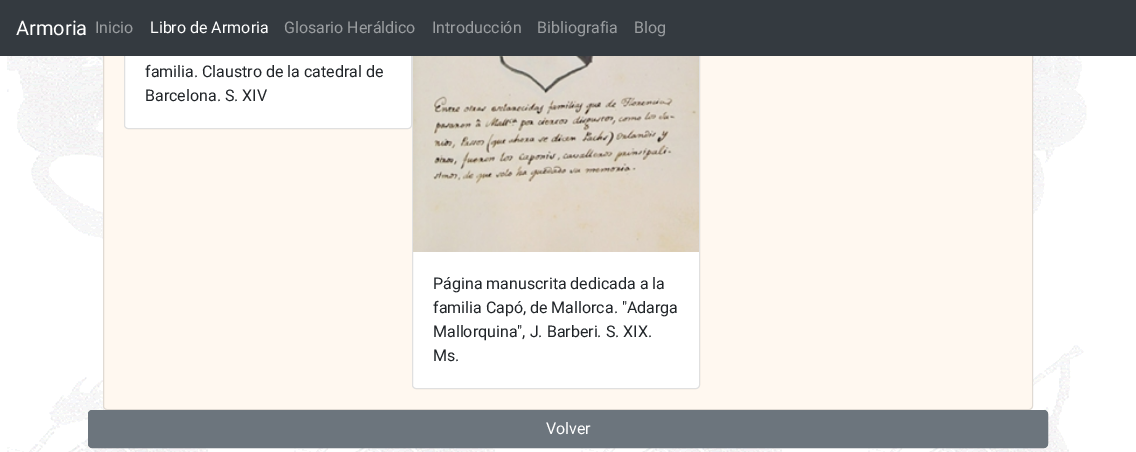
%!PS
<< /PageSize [1136 452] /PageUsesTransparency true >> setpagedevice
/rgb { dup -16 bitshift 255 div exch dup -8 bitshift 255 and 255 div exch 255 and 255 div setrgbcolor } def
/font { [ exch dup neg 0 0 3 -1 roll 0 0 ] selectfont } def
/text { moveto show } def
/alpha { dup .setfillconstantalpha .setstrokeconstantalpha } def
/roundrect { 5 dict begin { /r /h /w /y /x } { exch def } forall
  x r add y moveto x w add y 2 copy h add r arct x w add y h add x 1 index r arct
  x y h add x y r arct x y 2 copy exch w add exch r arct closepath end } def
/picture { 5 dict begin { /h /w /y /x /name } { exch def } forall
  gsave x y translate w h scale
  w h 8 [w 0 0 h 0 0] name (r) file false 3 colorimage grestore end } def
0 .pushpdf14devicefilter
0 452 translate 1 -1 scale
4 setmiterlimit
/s1 { /Roboto-Regular 20 font 16#FFFFFF rgb } def
/s2 { /Roboto-Regular 16 font 16#9A9DA0 rgb } def
/s3 { /Roboto-Regular 16 font 16#FFFFFF rgb } def
/s4 { /Roboto-Regular 16 font 16#212529 rgb } def
16#FFFFFF rgb
0 0 1136 452 rectfill
(pic1.raw) 7 56 1080 396 picture
16#FFF8F0 rgb
103 -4 930 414 4 roundrect fill
0.12 alpha
16#000000 rgb
103.5 -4.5 929 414 3.5 roundrect stroke
1 alpha
16#FFFFFF rgb
124 -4 288 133 4 roundrect fill
0.12 alpha
16#000000 rgb
124.5 -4.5 287 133 3.5 roundrect stroke
1 alpha
16#FFFFFF rgb
412 -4 288 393 4 roundrect fill
0.12 alpha
16#000000 rgb
412.5 -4.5 287 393 3.5 roundrect stroke
1 alpha
16#343A40 rgb
0 0 1136 56 rectfill
s1
(Armoria) 16 35 text
s2
(Inicio) 95 33 text
s3
(Libro de Armoria) 150 33 text
s2
(Glosario Heráldico) 284 33 text
(Introducción) 432 33 text
(Bibliografia) 537 33 text
(Blog) 634 33 text
s4
(familia. Claustro de la catedral de) 145 77 text
(Barcelona. S. XIV) 145 101 text
(pic2.raw) 413 56 286 196 picture
(Página manuscrita dedicada a la) 433 289 text
(familia Capó, de Mallorca. "Adarga) 433 313 text
(Mallorquina", J. Barberi. S. XIX.) 433 337 text
(Ms.) 433 361 text
16#6C757D rgb
88.5 410.5 959 37 3.5 roundrect gsave fill grestore
stroke
s3
(Volver) 546 434 text
.poppdf14devicefilter showpage
